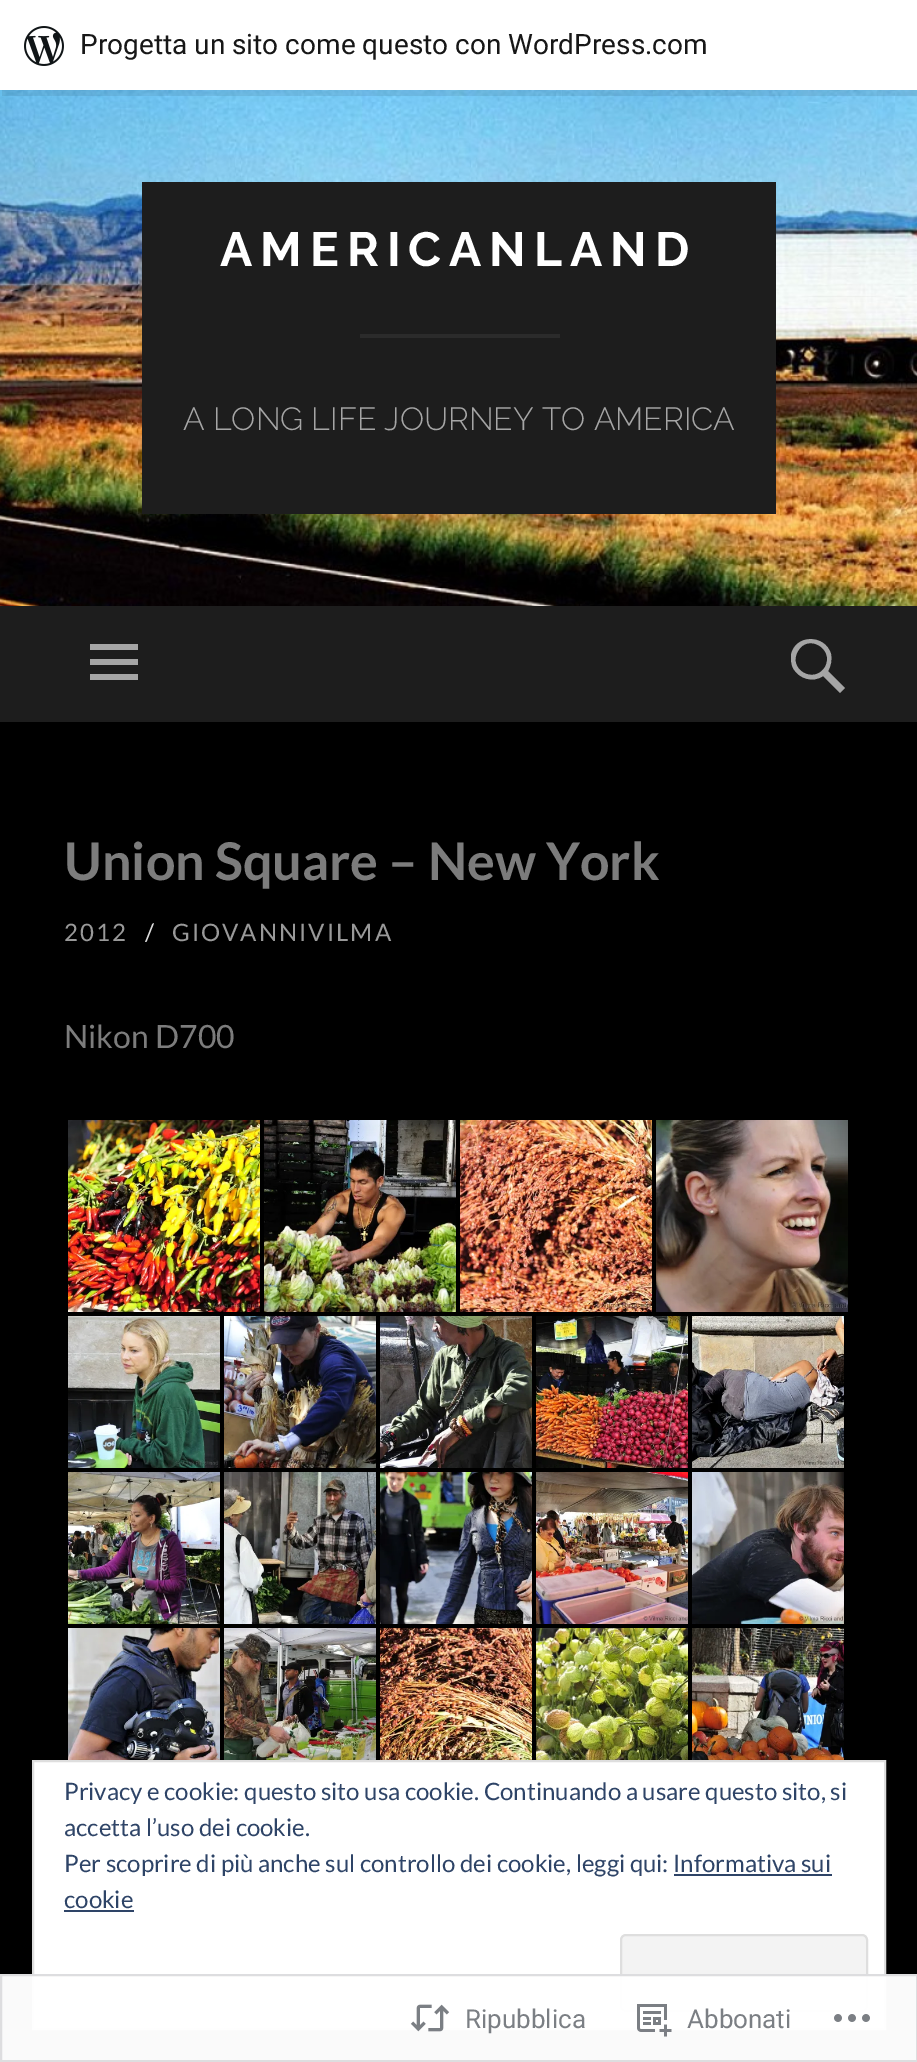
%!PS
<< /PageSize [917 2062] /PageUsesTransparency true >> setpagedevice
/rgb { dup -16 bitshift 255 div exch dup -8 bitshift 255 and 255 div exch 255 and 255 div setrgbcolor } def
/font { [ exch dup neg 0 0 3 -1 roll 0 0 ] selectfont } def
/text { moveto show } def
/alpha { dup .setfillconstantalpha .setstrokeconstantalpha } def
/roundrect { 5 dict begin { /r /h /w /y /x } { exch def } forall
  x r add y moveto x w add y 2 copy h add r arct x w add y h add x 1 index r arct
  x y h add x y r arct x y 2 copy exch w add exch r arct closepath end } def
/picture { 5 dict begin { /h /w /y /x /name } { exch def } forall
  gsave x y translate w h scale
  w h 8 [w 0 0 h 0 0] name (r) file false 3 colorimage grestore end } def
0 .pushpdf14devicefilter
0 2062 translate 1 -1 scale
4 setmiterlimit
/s1 { /Roboto-Regular 28 font 16#171717 rgb } def
/s2 { /Raleway-Light 32 font 16#A5A5A5 rgb } def
/s3 { /Lato-Bold 52 font 16#7C7C7C rgb } def
/s4 { /Lato-Regular 32 font 16#7C7C7C rgb } def
/s5 { /Lato-Regular 24 font 16#2E4467 rgb } def
/s6 { /Roboto-Regular 26 font 16#7B7F84 rgb } def
16#000000 rgb
0 0 917 2062 rectfill
(pic2.raw) 0 90 917 516 picture
0.08 alpha
2 90 moveto 2 96 lineto 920 96 lineto 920 6 lineto 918 6 lineto 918 90 lineto closepath fill
1 alpha
16#FFFFFF rgb
0 0 917 90 rectfill
(pic1.raw) 24 26 40 40 picture
s1
(Progetta un sito come questo con WordPress.com) 80 54 text
16#1D1D1D rgb
142 182 634 332 rectfill
/Raleway-Bold 48 font
16#FFFFFF rgb
220 266 moveto 8 0 (AMERICANLAND) ashow
16#2B2B2B rgb
360 334 200 4 rectfill
s2
(A LONG LIFE JOURNEY TO AMERICA) 183 430 text
16#1D1D1D rgb
0 606 917 116 rectfill
16#A5A5A5 rgb
90 680 moveto 90 674 lineto 138 674 lineto 138 680 lineto closepath 90 644 moveto 138 644 lineto 138 650 lineto 90 650 lineto closepath 90 665 moveto 90 659 lineto 138 659 lineto 138 665 lineto closepath fill
845 688 moveto 840 693 lineto 823 676 lineto 813 683 799 679 793 668 curveto 791 664 791 660 791 655 curveto 795 634 825 634 831 654 curveto 832 660 831 666 828 671 curveto closepath 798 651 moveto 787 669 814 685 825 667 curveto 835 649 808 633 798 651 curveto closepath fill
s3
(Union Square – New York) 64 880 text
/Lato-Regular 24 font
16#999999 rgb
64 941 moveto 2 0 (2012) ashow
16#DDDDDD rgb
145 941 moveto 2 0 (/) ashow
16#999999 rgb
172 941 moveto 2 0 (GIOVANNIVILMA) ashow
s4
(Nikon D700) 64 1048 text
(pic3.raw) 68 1120 192 192 picture
(pic4.raw) 264 1120 192 192 picture
(pic5.raw) 460 1120 192 192 picture
(pic6.raw) 656 1120 192 192 picture
(pic7.raw) 68 1316 152 152 picture
(pic8.raw) 224 1316 152 152 picture
(pic9.raw) 380 1316 152 152 picture
(pic10.raw) 536 1316 152 152 picture
(pic11.raw) 692 1316 152 152 picture
(pic12.raw) 68 1472 152 152 picture
(pic13.raw) 224 1472 152 152 picture
(pic14.raw) 380 1472 152 152 picture
(pic15.raw) 536 1472 152 152 picture
(pic16.raw) 692 1472 152 152 picture
(pic17.raw) 68 1628 152 132 picture
(pic18.raw) 224 1628 152 132 picture
(pic19.raw) 380 1628 152 132 picture
(pic20.raw) 536 1628 152 132 picture
(pic21.raw) 692 1628 152 132 picture
16#FFFFFF rgb
33 1761 moveto 885 1761 lineto 885 2029 lineto 33 2029 lineto closepath gsave fill grestore
16#DEDEDE rgb
2 setlinewidth
stroke
s5
(Privacy e cookie: questo sito usa cookie. Continuando a usare questo sito, si) 64 1800 text
(accetta l’uso dei cookie.) 64 1836 text
(Per scoprire di più anche sul controllo dei cookie, leggi qui: Informativa sui) 64 1872 text
(cookie) 64 1908 text
674 1874 158 2 rectfill
64 1910 70 2 rectfill
16#F3F3F3 rgb
621 1935 246 76 5 roundrect gsave fill grestore
16#DEDEDE rgb
stroke
0.98 alpha
16#FFFFFF rgb
0 1974 917 88 rectfill
16#DCDCDE rgb
1 1975 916 86 rectstroke
1 alpha
(pic22.raw) 410 2004 40 28 picture
s6
(Ripubblica) 465 2028 text
(pic23.raw) 637 2004 35 33 picture
(Abbonati) 687 2028 text
(pic24.raw) 834 2014 36 8 picture
.poppdf14devicefilter showpage
